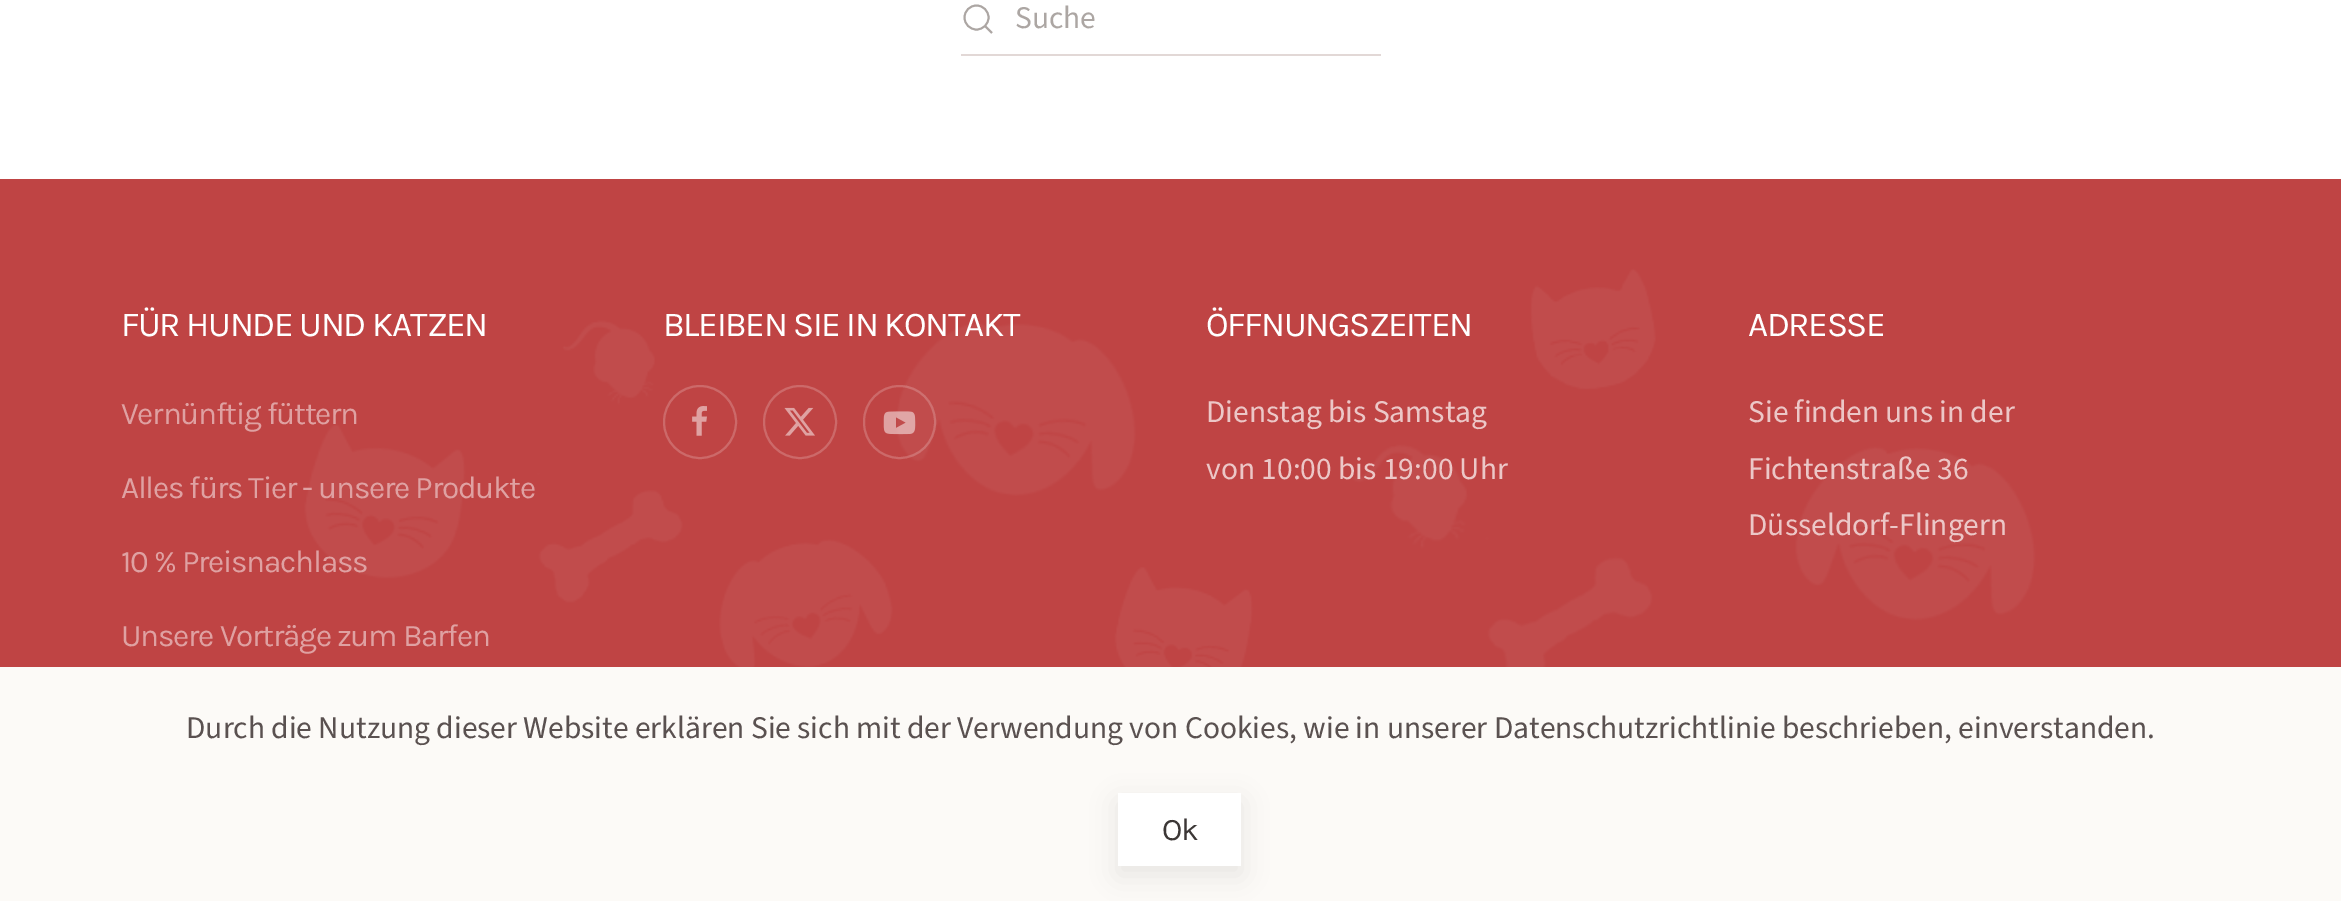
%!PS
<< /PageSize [2341 901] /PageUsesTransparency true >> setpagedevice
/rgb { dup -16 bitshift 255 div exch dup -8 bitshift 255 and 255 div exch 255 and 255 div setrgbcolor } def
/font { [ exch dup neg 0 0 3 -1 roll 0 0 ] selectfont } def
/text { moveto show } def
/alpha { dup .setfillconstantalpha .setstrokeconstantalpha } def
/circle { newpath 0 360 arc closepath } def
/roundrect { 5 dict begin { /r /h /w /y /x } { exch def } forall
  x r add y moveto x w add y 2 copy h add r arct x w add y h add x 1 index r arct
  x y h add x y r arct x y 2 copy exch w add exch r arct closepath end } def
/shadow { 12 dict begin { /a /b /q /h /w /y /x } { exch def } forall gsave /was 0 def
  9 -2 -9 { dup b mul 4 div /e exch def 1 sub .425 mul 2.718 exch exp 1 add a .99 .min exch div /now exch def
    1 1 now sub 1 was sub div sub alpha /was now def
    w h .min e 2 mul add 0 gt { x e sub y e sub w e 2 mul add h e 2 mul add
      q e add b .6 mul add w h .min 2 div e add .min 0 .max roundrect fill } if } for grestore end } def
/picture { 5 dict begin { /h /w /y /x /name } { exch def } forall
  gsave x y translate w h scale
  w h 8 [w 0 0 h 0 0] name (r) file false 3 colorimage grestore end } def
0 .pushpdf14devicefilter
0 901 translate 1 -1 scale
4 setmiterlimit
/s1 { /SourceSans3-Regular 31.5 font 16#ACA6A3 rgb } def
/s2 { /SourceSans3-Regular 31.5 font 16#ECC7C7 rgb } def
/s3 { /SourceSans3-Regular 31.5 font 16#5A5150 rgb } def
16#FFFFFF rgb
0 0 2341 901 rectfill
16#ACA6A3 rgb
1.9 setlinewidth
976.5 17.5 12 circle stroke
985 26 moveto 992 33 lineto closepath stroke
16#E2D8D6 rgb
961 54 420 2 rectfill
s1
(Suche) 1015 28 text
16#BF4444 rgb
0 179 2341 488 rectfill
(pic1.raw) 304 268 1732 399 picture
/Karla-Regular 35 font
16#FFFFFF rgb
121 336 moveto -1.4 0 (FÜR HUNDE UND KATZEN) ashow
/Karla-Regular 31.5 font
16#DFA1A2 rgb
121 424 moveto -1.25 0 (Vernünftig füttern) ashow
121 498 moveto -1.25 0 (Alles fürs Tier - unsere Produkte) ashow
121 572 moveto -1.25 0 (10 % Preisnachlass) ashow
121 646 moveto -1.25 0 (Unsere Vorträge zum Barfen) ashow
/Karla-Regular 35 font
16#FFFFFF rgb
663 336 moveto -1.4 0 (BLEIBEN SIE IN KONTAKT) ashow
16#CC6969 rgb
2 setlinewidth
700 422 36 circle stroke
(pic2.raw) 692 406 15 30 picture
800 422 36 circle stroke
(pic3.raw) 784 407 31 29 picture
0.2 alpha
16#FFFFFF rgb
864 386 71 72 35.5 roundrect stroke
1 alpha
(pic4.raw) 883 411 33 24 picture
1206 336 moveto -1.4 0 (ÖFFNUNGSZEITEN) ashow
s2
(Dienstag bis Samstag) 1206 422 text
(von 10:00 bis 19:00 Uhr) 1206 479 text
/Karla-Regular 35 font
16#FFFFFF rgb
1748 336 moveto -1.4 0 (ADRESSE) ashow
s2
(Sie finden uns in der) 1748 422 text
(Fichtenstraße 36) 1748 479 text
(Düsseldorf-Flingern) 1748 535 text
16#FCFAF7 rgb
0 667 2341 234 rectfill
s3
(Durch die Nutzung dieser Website erklären Sie sich mit der Verwendung von Cookies, wie in unserer Datenschutzrichtlinie beschrieben, einverstanden.) 186 738 text
16#000000 rgb
1118 802 123 73 0 13 0.08 shadow
16#FFFFFF rgb
1118 793 123 73 rectfill
/Karla-Regular 31.5 font
16#3C3736 rgb
1162 840 moveto -1.25 0 (Ok) ashow
.poppdf14devicefilter showpage
